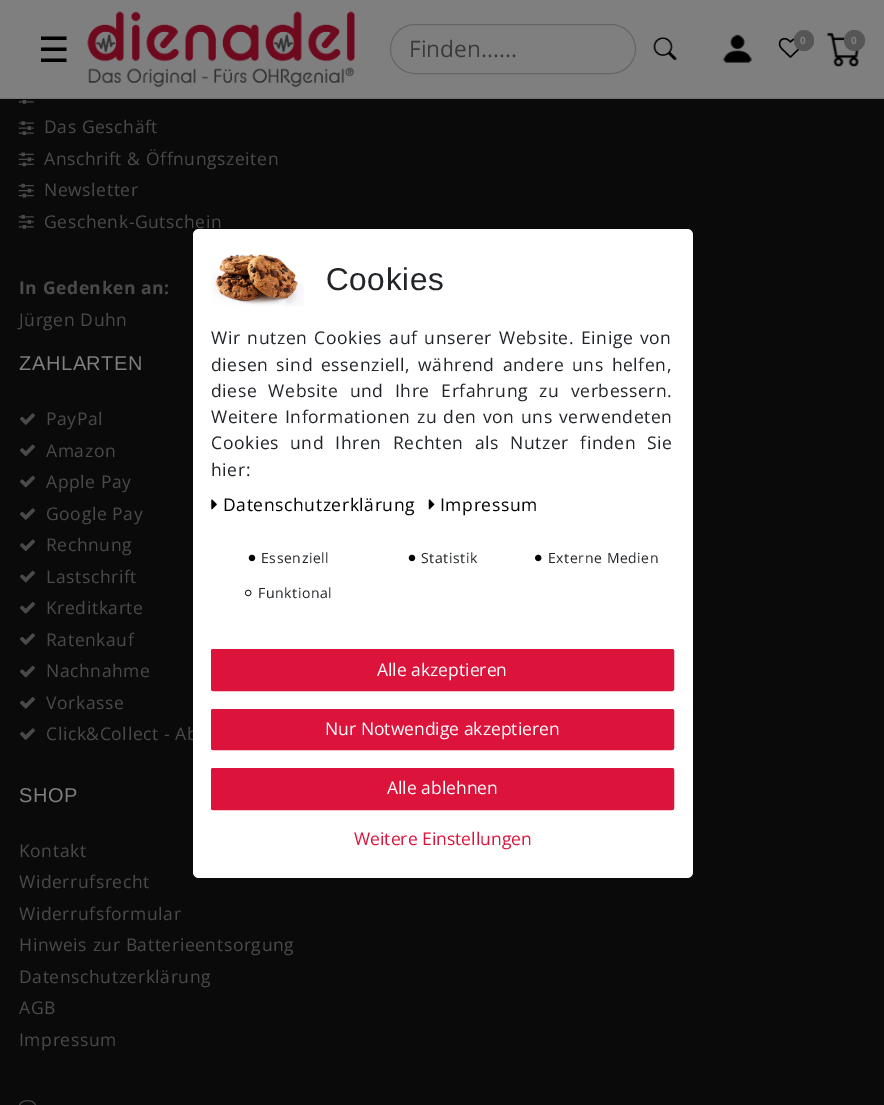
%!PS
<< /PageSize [884 1105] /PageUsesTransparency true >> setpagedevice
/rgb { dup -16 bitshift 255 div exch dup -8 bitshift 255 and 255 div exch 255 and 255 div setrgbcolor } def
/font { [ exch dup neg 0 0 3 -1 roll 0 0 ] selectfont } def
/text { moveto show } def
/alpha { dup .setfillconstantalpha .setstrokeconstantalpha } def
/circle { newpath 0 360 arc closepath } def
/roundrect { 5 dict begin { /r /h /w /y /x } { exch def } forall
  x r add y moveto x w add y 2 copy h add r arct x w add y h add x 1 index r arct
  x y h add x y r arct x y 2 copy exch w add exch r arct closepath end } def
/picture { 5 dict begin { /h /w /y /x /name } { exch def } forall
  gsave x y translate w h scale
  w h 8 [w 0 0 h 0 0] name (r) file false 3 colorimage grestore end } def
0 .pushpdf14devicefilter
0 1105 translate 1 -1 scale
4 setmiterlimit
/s1 { /DejaVuSans-Regular 35 font 16#000000 rgb } def
/s2 { /OpenSans-Regular 22.75 font 16#757575 rgb } def
/s3 { /OpenSans-Regular 17.5 font 16#FFFFFF rgb } def
/s4 { /OpenSans-Regular 17.5 font 16#DC143C rgb } def
16#141414 rgb
0 0 884 1105 rectfill
16#FFFFFF rgb
0 0 884 98 rectfill
s1
(☰) 38 62 text
(pic1.raw) 87 11 268 77 picture
16#CCCCCC rgb
390.5 24.5 245 49 24.5 roundrect stroke
s2
(Finden......) 409 57 text
(pic2.raw) 653 37 24 23 picture
(pic3.raw) 722 34 30 29 picture
(pic4.raw) 778 37 22 21 picture
16#ADADAD rgb
794 30 20 21 10 roundrect fill
/OpenSans-Bold 10 font
16#FFFFFF rgb
800 44 moveto 0.6 0 (0) ashow
(pic5.raw) 826 33 34 34 picture
16#ADADAD rgb
854.5 40.5 10.5 circle fill
16#FFFFFF rgb
851 44 moveto 0.6 0 (0) ashow
16#DEE2E6 rgb
0 98 884 1 rectfill
(pic6.raw) 18 100 16 4 picture
(pic7.raw) 18 121 16 14 picture
/OpenSans-Regular 17.5 font
16#959595 rgb
44 133 moveto 0.6 0 (Das Geschäft) ashow
(pic8.raw) 18 152 16 15 picture
44 165 moveto 0.6 0 (Anschrift & Öffnungszeiten) ashow
(pic9.raw) 18 183 16 15 picture
44 196 moveto 0.6 0 (Newsletter) ashow
(pic10.raw) 18 215 16 14 picture
44 228 moveto 0.6 0 (Geschenk-Gutschein) ashow
/OpenSans-Bold 17.5 font
19 294 moveto 0.6 0 (In Gedenken an:) ashow
/OpenSans-Regular 17.5 font
19 326 moveto 0.6 0 (Jürgen Duhn) ashow
/LiberationSans-Regular 20 font
16#FFFFFF rgb
19 370 moveto 0.6 0 (ZAHLARTEN) ashow
(pic11.raw) 20 413 15 12 picture
/OpenSans-Regular 17.5 font
16#959595 rgb
46 425 moveto 0.6 0 (PayPal) ashow
(pic12.raw) 20 444 15 13 picture
46 457 moveto 0.6 0 (Amazon) ashow
(pic13.raw) 20 475 15 13 picture
46 488 moveto 0.6 0 (Apple Pay) ashow
(pic11.raw) 20 508 15 12 picture
46 520 moveto 0.6 0 (Google Pay) ashow
(pic12.raw) 20 539 15 13 picture
46 551 moveto 0.6 0 (Rechnung) ashow
(pic13.raw) 20 570 15 13 picture
46 583 moveto 0.6 0 (Lastschrift) ashow
(pic14.raw) 20 602 15 12 picture
46 614 moveto 0.6 0 (Kreditkarte) ashow
(pic11.raw) 20 633 15 12 picture
46 646 moveto 0.6 0 (Ratenkauf) ashow
(pic13.raw) 20 665 15 13 picture
46 677 moveto 0.6 0 (Nachnahme) ashow
(pic14.raw) 20 697 15 12 picture
46 709 moveto 0.6 0 (Vorkasse) ashow
(pic11.raw) 20 728 15 12 picture
46 740 moveto 0.6 0 (Click&Collect - Ab) ashow
/LiberationSans-Regular 20 font
16#FFFFFF rgb
19 802 moveto 0.6 0 (SHOP) ashow
/OpenSans-Regular 17.5 font
16#959595 rgb
19 857 moveto 0.6 0 (Kontakt) ashow
19 888 moveto 0.6 0 (Widerrufsrecht) ashow
19 920 moveto 0.6 0 (Widerrufsformular) ashow
19 951 moveto 0.6 0 (Hinweis zur Batterieentsorgung) ashow
19 983 moveto 0.6 0 (Datenschutzerklärung) ashow
19 1014 moveto 0.6 0 (AGB) ashow
19 1046 moveto 0.6 0 (Impressum) ashow
(pic15.raw) 19 1100 17 5 picture
0.5 alpha
16#000000 rgb
1990 setlinewidth
-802 -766 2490 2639 1001 roundrect stroke
1 alpha
16#FFFFFF rgb
193 229 500 649 6 roundrect fill
(pic16.raw) 211 254 93 53 picture
/LiberationSans-Regular 31.5 font
16#212529 rgb
326 290 moveto 0.6 0 (Cookies) ashow
/OpenSans-Regular 17.5 font
211 344 moveto 1.75 0 32 0.6 0 (Wir nutzen Cookies auf unserer Website. Einige von) awidthshow
211 371 moveto 2.75 0 32 0.6 0 (diesen sind essenziell, während andere uns helfen,) awidthshow
211 397 moveto 6.25 0 32 0.6 0 (diese Website und Ihre Erfahrung zu verbessern.) awidthshow
211 423 moveto 1.25 0 32 0.6 0 (Weitere Informationen zu den von uns verwendeten) awidthshow
211 449 moveto 6 0 32 0.6 0 (Cookies und Ihren Rechten als Nutzer finden Sie) awidthshow
211 476 moveto 0.6 0 (hier:) ashow
(pic17.raw) 211 499 6 11 picture
16#000000 rgb
223 511 moveto 0.6 0 (Datenschutzerklärung) ashow
(pic18.raw) 428 499 7 11 picture
440 511 moveto 0.6 0 (Impressum) ashow
(pic19.raw) 248 554 8 8 picture
/OpenSans-Regular 14 font
16#212529 rgb
261 563 moveto 0.6 0 (Essenziell) ashow
(pic19.raw) 408 554 8 8 picture
421 563 moveto 0.6 0 (Statistik) ashow
(pic20.raw) 535 554 7 8 picture
548 563 moveto 0.6 0 (Externe Medien) ashow
(pic21.raw) 245 589 7 8 picture
258 598 moveto 0.6 0 (Funktional) ashow
16#DC143C rgb
211.5 649.5 462 41 1.5 roundrect gsave fill grestore
1 setlinewidth
stroke
s3
(Alle akzeptieren) 377 676 text
16#DC143C rgb
211.5 709.5 462 40 1.5 roundrect gsave fill grestore
stroke
s3
(Nur Notwendige akzeptieren) 325 735 text
16#DC143C rgb
211.5 768.5 462 41 1.5 roundrect gsave fill grestore
stroke
s3
(Alle ablehnen) 387 794 text
s4
(Weitere Einstellungen) 354 845 text
.poppdf14devicefilter showpage
